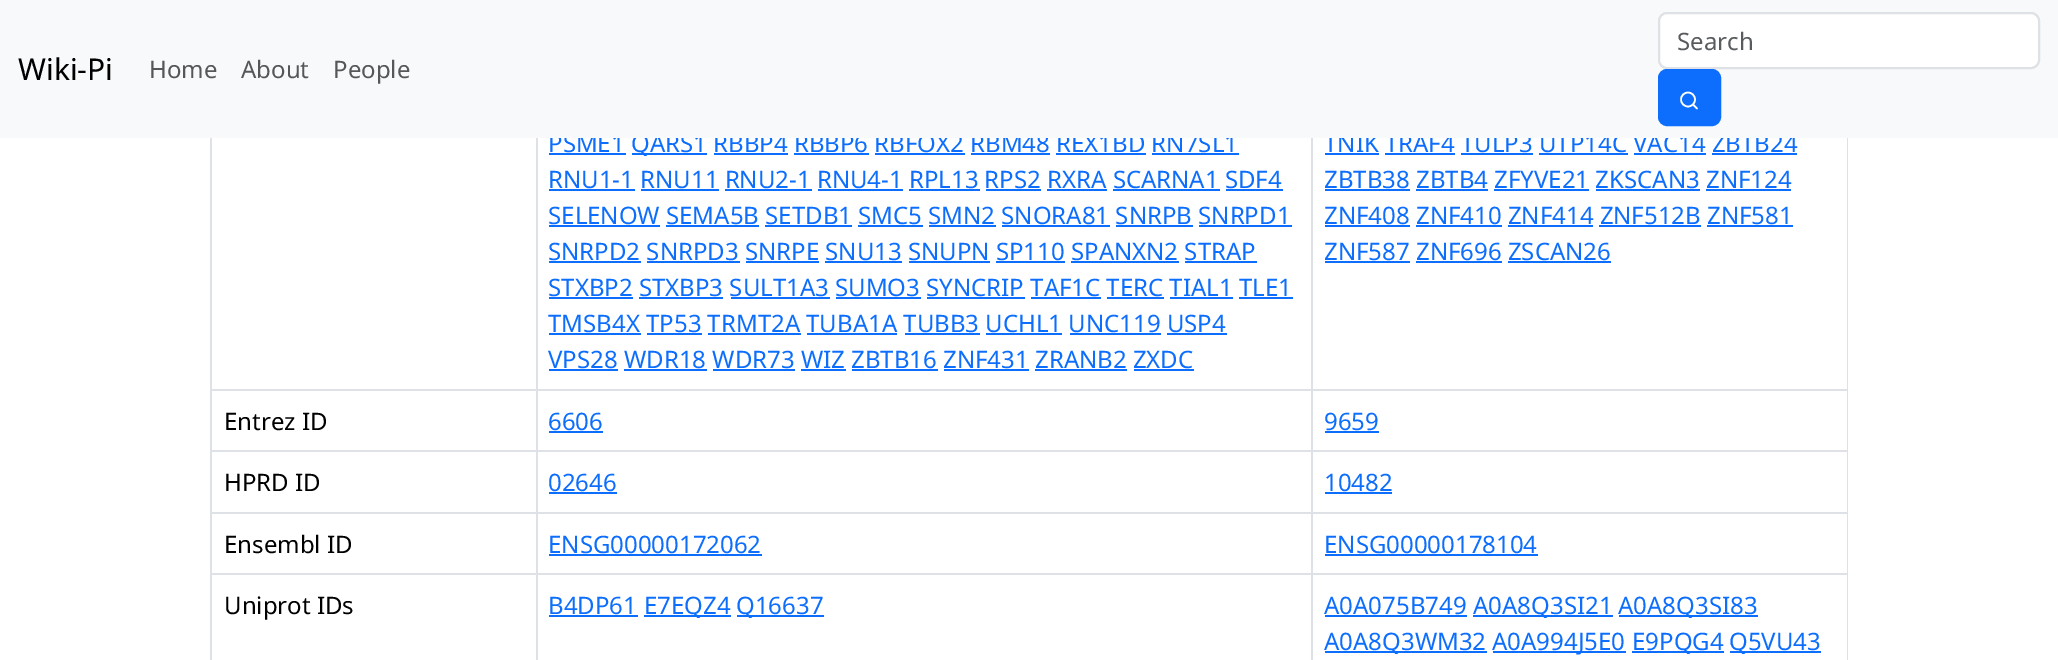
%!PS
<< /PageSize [2058 660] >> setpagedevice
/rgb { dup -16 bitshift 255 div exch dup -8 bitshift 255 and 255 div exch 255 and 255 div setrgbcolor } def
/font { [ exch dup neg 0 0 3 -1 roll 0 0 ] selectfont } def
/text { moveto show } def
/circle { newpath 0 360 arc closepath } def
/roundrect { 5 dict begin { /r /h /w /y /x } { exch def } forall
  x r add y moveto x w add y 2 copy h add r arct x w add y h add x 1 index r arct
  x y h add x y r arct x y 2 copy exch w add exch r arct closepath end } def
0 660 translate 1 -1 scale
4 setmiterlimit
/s1 { /NotoSans-Regular 24 font 16#0D6EFD rgb } def
/s2 { /NotoSans-Regular 30 font 16#000000 rgb } def
/s3 { /NotoSans-Regular 24 font 16#595C5F rgb } def
/s4 { /NotoSans-Regular 24 font 16#575758 rgb } def
/s5 { /NotoSans-Regular 24 font 16#000000 rgb } def
16#FFFFFF rgb
0 0 2058 660 rectfill
s1
(PSME1) 548 152 text
632 153 75 2 rectfill
(QARS1 RBBP4 RBBP6 RBFOX2 RBM48 REX1BD RN7SL1) 631 152 text
(TNIK TRAF4 TULP3 UTP14C VAC14 ZBTB24) 1324 152 text
16#F8F9FA rgb
0 0 2058 138 rectfill
s2
(Wiki-Pi) 18 80 text
16#FFFFFF rgb
1659 13 380 55 8 roundrect gsave fill grestore
16#DEE2E6 rgb
2 setlinewidth
stroke
s3
(Search) 1677 50 text
16#0D6EFD rgb
1659 70 61 55 8 roundrect gsave fill grestore
stroke
16#FFFFFF rgb
1.6 setlinewidth
1688 99.5 7 circle stroke
1 setlinecap
1697 108.5 moveto 1693.5 105 lineto stroke
s4
(Home) 149 78 text
(About) 241 78 text
(People) 333 78 text
16#0D6EFD rgb
549 153 77 2 rectfill
714 153 74 2 rectfill
794 153 75 2 rectfill
875 153 90 2 rectfill
971 153 79 2 rectfill
1056 153 90 2 rectfill
1152 153 87 2 rectfill
(RNU1-1 RNU11 RNU2-1 RNU4-1 RPL13 RPS2 RXRA SCARNA1 SDF4) 548 188 text
549 189 86 2 rectfill
641 189 78 2 rectfill
725 189 87 2 rectfill
818 189 85 2 rectfill
909 189 71 2 rectfill
986 189 55 2 rectfill
1047 189 60 2 rectfill
1113 189 107 2 rectfill
1226 189 57 2 rectfill
(SELENOW SEMA5B SETDB1 SMC5 SMN2 SNORA81 SNRPB SNRPD1) 548 224 text
549 225 111 2 rectfill
666 225 93 2 rectfill
765 225 87 2 rectfill
858 225 65 2 rectfill
929 225 67 2 rectfill
1002 225 108 2 rectfill
1116 225 77 2 rectfill
1199 225 93 2 rectfill
(SNRPD2 SNRPD3 SNRPE SNU13 SNUPN SP110 SPANXN2 STRAP) 548 260 text
549 261 92 2 rectfill
647 261 93 2 rectfill
746 261 73 2 rectfill
825 261 77 2 rectfill
909 261 81 2 rectfill
996 261 69 2 rectfill
1071 261 108 2 rectfill
1185 261 72 2 rectfill
(STXBP2 STXBP3 SULT1A3 SUMO3 SYNCRIP TAF1C TERC TIAL1 TLE1) 548 296 text
549 297 84 2 rectfill
639 297 84 2 rectfill
731 297 99 2 rectfill
836 297 85 2 rectfill
927 297 98 2 rectfill
1031 297 70 2 rectfill
1107 297 57 2 rectfill
1170 297 63 2 rectfill
1239 297 54 2 rectfill
(TMSB4X TP53 TRMT2A TUBA1A TUBB3 UCHL1 UNC119 USP4) 548 332 text
549 333 92 2 rectfill
647 333 55 2 rectfill
708 333 93 2 rectfill
807 333 90 2 rectfill
905 333 75 2 rectfill
986 333 76 2 rectfill
1070 333 91 2 rectfill
1167 333 60 2 rectfill
(VPS28 WDR18 WDR73 WIZ ZBTB16 ZNF431 ZRANB2 ZXDC) 548 368 text
549 369 69 2 rectfill
624 369 83 2 rectfill
713 369 82 2 rectfill
801 369 45 2 rectfill
852 369 86 2 rectfill
944 369 85 2 rectfill
1035 369 92 2 rectfill
1134 369 60 2 rectfill
1325 153 54 2 rectfill
1385 153 70 2 rectfill
1461 153 72 2 rectfill
1539 153 89 2 rectfill
1634 153 72 2 rectfill
1712 153 85 2 rectfill
(ZBTB38 ZBTB4 ZFYVE21 ZKSCAN3 ZNF124) 1324 188 text
1325 189 85 2 rectfill
1416 189 72 2 rectfill
1494 189 95 2 rectfill
1596 189 104 2 rectfill
1706 189 85 2 rectfill
(ZNF408 ZNF410 ZNF414 ZNF512B ZNF581) 1324 224 text
1325 225 85 2 rectfill
1416 225 86 2 rectfill
1508 225 85 2 rectfill
1599 225 102 2 rectfill
1707 225 86 2 rectfill
(ZNF587 ZNF696 ZSCAN26) 1324 260 text
1325 261 85 2 rectfill
1416 261 86 2 rectfill
1508 261 103 2 rectfill
16#DEE2E6 rgb
210 389 1638 2 rectfill
s5
(Entrez ID) 224 430 text
s1
(6606) 548 430 text
549 431 54 2 rectfill
(9659) 1324 430 text
1325 431 54 2 rectfill
16#DEE2E6 rgb
210 450 1638 2 rectfill
s5
(HPRD ID) 224 491 text
s1
(02646) 548 491 text
549 492 68 2 rectfill
(10482) 1324 491 text
1325 492 67 2 rectfill
16#DEE2E6 rgb
210 512 1638 2 rectfill
s5
(Ensembl ID) 224 553 text
s1
(ENSG00000172062) 548 553 text
549 554 213 2 rectfill
(ENSG00000178104) 1324 553 text
1325 554 213 2 rectfill
16#DEE2E6 rgb
210 573 1638 2 rectfill
210 138 2 522 rectfill
s5
(Uniprot IDs) 224 614 text
16#DEE2E6 rgb
536 138 2 522 rectfill
s1
(B4DP61) 548 614 text
549 615 89 2 rectfill
644 615 87 2 rectfill
(E7EQZ4) 644 614 text
737 615 87 2 rectfill
(Q16637) 736 614 text
16#DEE2E6 rgb
1847 138 1 522 rectfill
1311 138 2 522 rectfill
s1
(A0A075B749) 1324 614 text
1325 615 142 2 rectfill
1473 615 140 2 rectfill
(A0A8Q3SI21) 1473 614 text
1619 615 139 2 rectfill
(A0A8Q3SI83) 1618 614 text
1325 651 162 2 rectfill
(A0A8Q3WM32) 1324 650 text
1493 651 133 2 rectfill
(A0A994J5E0) 1492 650 text
1632 651 92 2 rectfill
(E9PQG4) 1632 650 text
1730 651 91 2 rectfill
(Q5VU43) 1729 650 text
showpage
